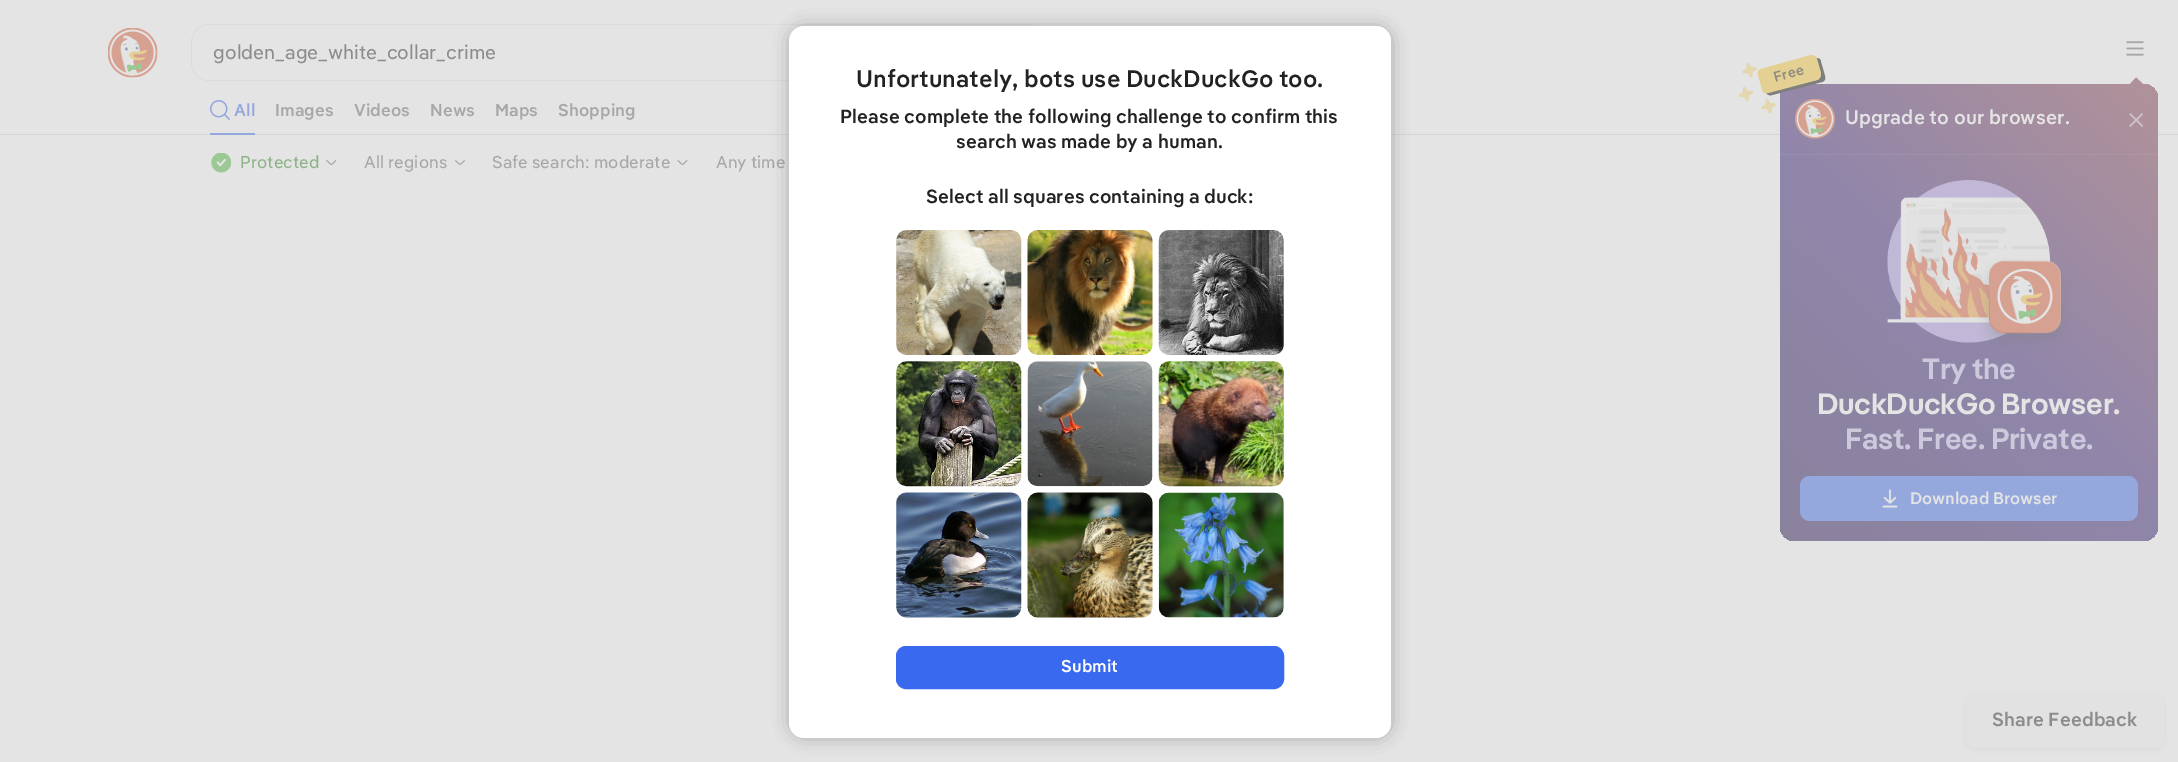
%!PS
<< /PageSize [2178 762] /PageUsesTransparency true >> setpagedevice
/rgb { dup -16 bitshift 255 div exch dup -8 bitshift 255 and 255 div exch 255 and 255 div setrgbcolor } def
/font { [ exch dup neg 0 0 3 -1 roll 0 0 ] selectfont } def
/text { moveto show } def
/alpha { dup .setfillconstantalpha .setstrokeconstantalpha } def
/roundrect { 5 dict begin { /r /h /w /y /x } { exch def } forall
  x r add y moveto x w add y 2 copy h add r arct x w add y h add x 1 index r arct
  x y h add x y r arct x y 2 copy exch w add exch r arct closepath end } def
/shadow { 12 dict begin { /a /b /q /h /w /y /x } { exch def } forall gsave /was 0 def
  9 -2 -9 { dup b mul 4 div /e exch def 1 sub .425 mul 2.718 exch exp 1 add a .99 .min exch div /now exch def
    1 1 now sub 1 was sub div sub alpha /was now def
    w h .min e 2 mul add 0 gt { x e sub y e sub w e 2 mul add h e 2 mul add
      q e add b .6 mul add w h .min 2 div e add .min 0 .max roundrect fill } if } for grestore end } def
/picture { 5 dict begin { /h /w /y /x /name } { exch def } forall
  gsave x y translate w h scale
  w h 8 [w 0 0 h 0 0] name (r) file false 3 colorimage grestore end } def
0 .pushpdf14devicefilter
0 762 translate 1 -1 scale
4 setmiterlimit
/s1 { /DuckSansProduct-Bold 17.5 font 16#E4E4E4 rgb } def
16#E4E4E4 rgb
0 0 2178 762 rectfill
16#D5D5D5 rgb
0 134 moveto 0 135 lineto 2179 135 lineto 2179 1 lineto 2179 134 lineto closepath fill
(pic1.raw) 108 28 50 50 picture
0.08 alpha
16#7E7E7E rgb
191.5 24.5 857 56 17.5 roundrect stroke
1 alpha
16#E4E4E4 rgb
193 25 855 55 16 roundrect fill
/DuckSansProduct-Regular 20.5 font
16#8C8C8C rgb
213 59 moveto 0.1 0 (golden_age_white_collar_crime) ashow
(pic2.raw) 2126 41 18 15 picture
gsave 1780 84 378 457 15 roundrect clip newpath
<< /ShadingType 2 /ColorSpace /DeviceRGB /Coords [1627 667 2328 -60] /Extend [true true] /Function << /FunctionType 3 /Domain [0 1] /Functions [<< /FunctionType 2 /Domain [0 1] /C0 [0.522 0.498 0.58] /C1 [0.565 0.525 0.667] /N 1 >> << /FunctionType 2 /Domain [0 1] /C0 [0.565 0.525 0.667] /C1 [0.788 0.604 0.553] /N 1 >>] /Bounds [0.48] /Encode [0 1 0 1] >> >> shfill grestore
(pic3.raw) 1738 62 38 52 picture
16#7E7E7E rgb
1766 93 moveto 1768 95 1770 96 1772 95 curveto 1822 82 lineto 1824 82 1826 79 1825 76 curveto 1821 62 lineto 1821 59 1819 58 1816 58 curveto 1819 69 lineto 1820 72 1823 78 1817 80 curveto closepath fill
16#E4D092 rgb
1761 69 moveto 1811 55 lineto 1813 55 1816 56 1817 59 curveto 1821 73 lineto 1821 76 1820 79 1817 80 curveto 1768 93 lineto 1765 94 1762 92 1762 89 curveto 1758 75 lineto 1757 72 1759 69 1761 69 curveto closepath fill
/DuckSansProduct-Bold 15 font
16#8E8B81 rgb
gsave 1775 82 translate -15 rotate 0 0 moveto 0.1 0 (Free) ashow grestore
0.09 alpha
16#E4E4E4 rgb
1780 154 378 1 rectfill
1 alpha
(pic4.raw) 1795 99 40 40 picture
/DuckSansProduct-Bold 20.5 font
1845 124 moveto 0.1 0 (Upgrade to our browser.) ashow
(pic5.raw) 1887 180 163 163 picture
(pic6.raw) 1978 258 91 94 picture
(pic7.raw) 1997 268 56 56 picture
/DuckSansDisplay-Bold 30.9 font
16#CEC8DD rgb
1922 379 moveto -0.25 0 (Try the) ashow
16#E4E4E4 rgb
1817 414 moveto -0.25 0 (DuckDuckGo Browser.) ashow
16#CEC8DD rgb
1845 449 moveto -0.25 0 (Fast. Free. Private.) ashow
16#95A8DE rgb
1800 476 338 45 10 roundrect fill
(pic8.raw) 1882 489 16 19 picture
s1
(Download Browser) 1910 504 text
16#AE919B rgb
2144 85 moveto 2129 85 lineto 2136 77.5 lineto closepath fill
(pic9.raw) 2129 113 15 14 picture
(pic10.raw) 210 100 20 20 picture
/DuckSansProduct-Bold 18 font
16#95A8DE rgb
234 116 moveto 0.1 0 (All) ashow
210 133 45 2 rectfill
16#A7A7A7 rgb
275 116 moveto 0.1 0 (Images) ashow
354 116 moveto 0.1 0 (Videos) ashow
430 116 moveto 0.1 0 (News) ashow
495 116 moveto 0.1 0 (Maps) ashow
558 116 moveto 0.1 0 (Shopping) ashow
(pic11.raw) 211 153 20 20 picture
(pic12.raw) 216 159 10 8 picture
/DuckSansProduct-Regular 18 font
16#8EB388 rgb
240 168 moveto 0.1 0 (Protected) ashow
(pic13.raw) 326 160 11 5 picture
16#A7A7A7 rgb
364 168 moveto 0.1 0 (All regions) ashow
(pic14.raw) 455 160 10 5 picture
492 168 moveto 0.1 0 (Safe search: moderate) ashow
(pic15.raw) 677 160 11 5 picture
716 168 moveto 0.1 0 (Any time) ashow
16#000000 rgb
793 30 595 704 11 9.5 0.35 shadow
16#FFFFFF rgb
789 26 602 712 15 roundrect fill
/DuckSansProduct-Bold 25 font
16#222222 rgb
856 87 moveto 0.1 0 (Unfortunately, bots use DuckDuckGo too.) ashow
/DuckSansProduct-Bold 20 font
840 123 moveto 0.1 0 (Please complete the following challenge to confirm this) ashow
956 148 moveto 0.1 0 (search was made by a human.) ashow
926 203 moveto 0.1 0 (Select all squares containing a duck:) ashow
(pic16.raw) 896 230 126 125 picture
(pic17.raw) 1027 230 126 125 picture
(pic18.raw) 1158 230 126 125 picture
(pic19.raw) 896 361 126 126 picture
(pic20.raw) 1027 361 126 126 picture
(pic21.raw) 1158 361 126 126 picture
(pic22.raw) 896 492 126 126 picture
(pic23.raw) 1027 492 126 126 picture
(pic24.raw) 1158 492 126 126 picture
16#3969EF rgb
896.5 646.5 387 42 9.5 roundrect gsave fill grestore
stroke
/DuckSansProduct-Bold 18 font
16#FFFFFF rgb
1061 672 moveto 0.1 0 (Submit) ashow
16#7E7E7E rgb
1966 695 198 55 10 4 0.1 shadow
16#E2E2E2 rgb
1966 693 198 55 10 roundrect fill
/DuckSansProduct-Bold 20 font
16#8C8C8C rgb
1992 726 moveto 0.1 0 (Share Feedback) ashow
.poppdf14devicefilter showpage
